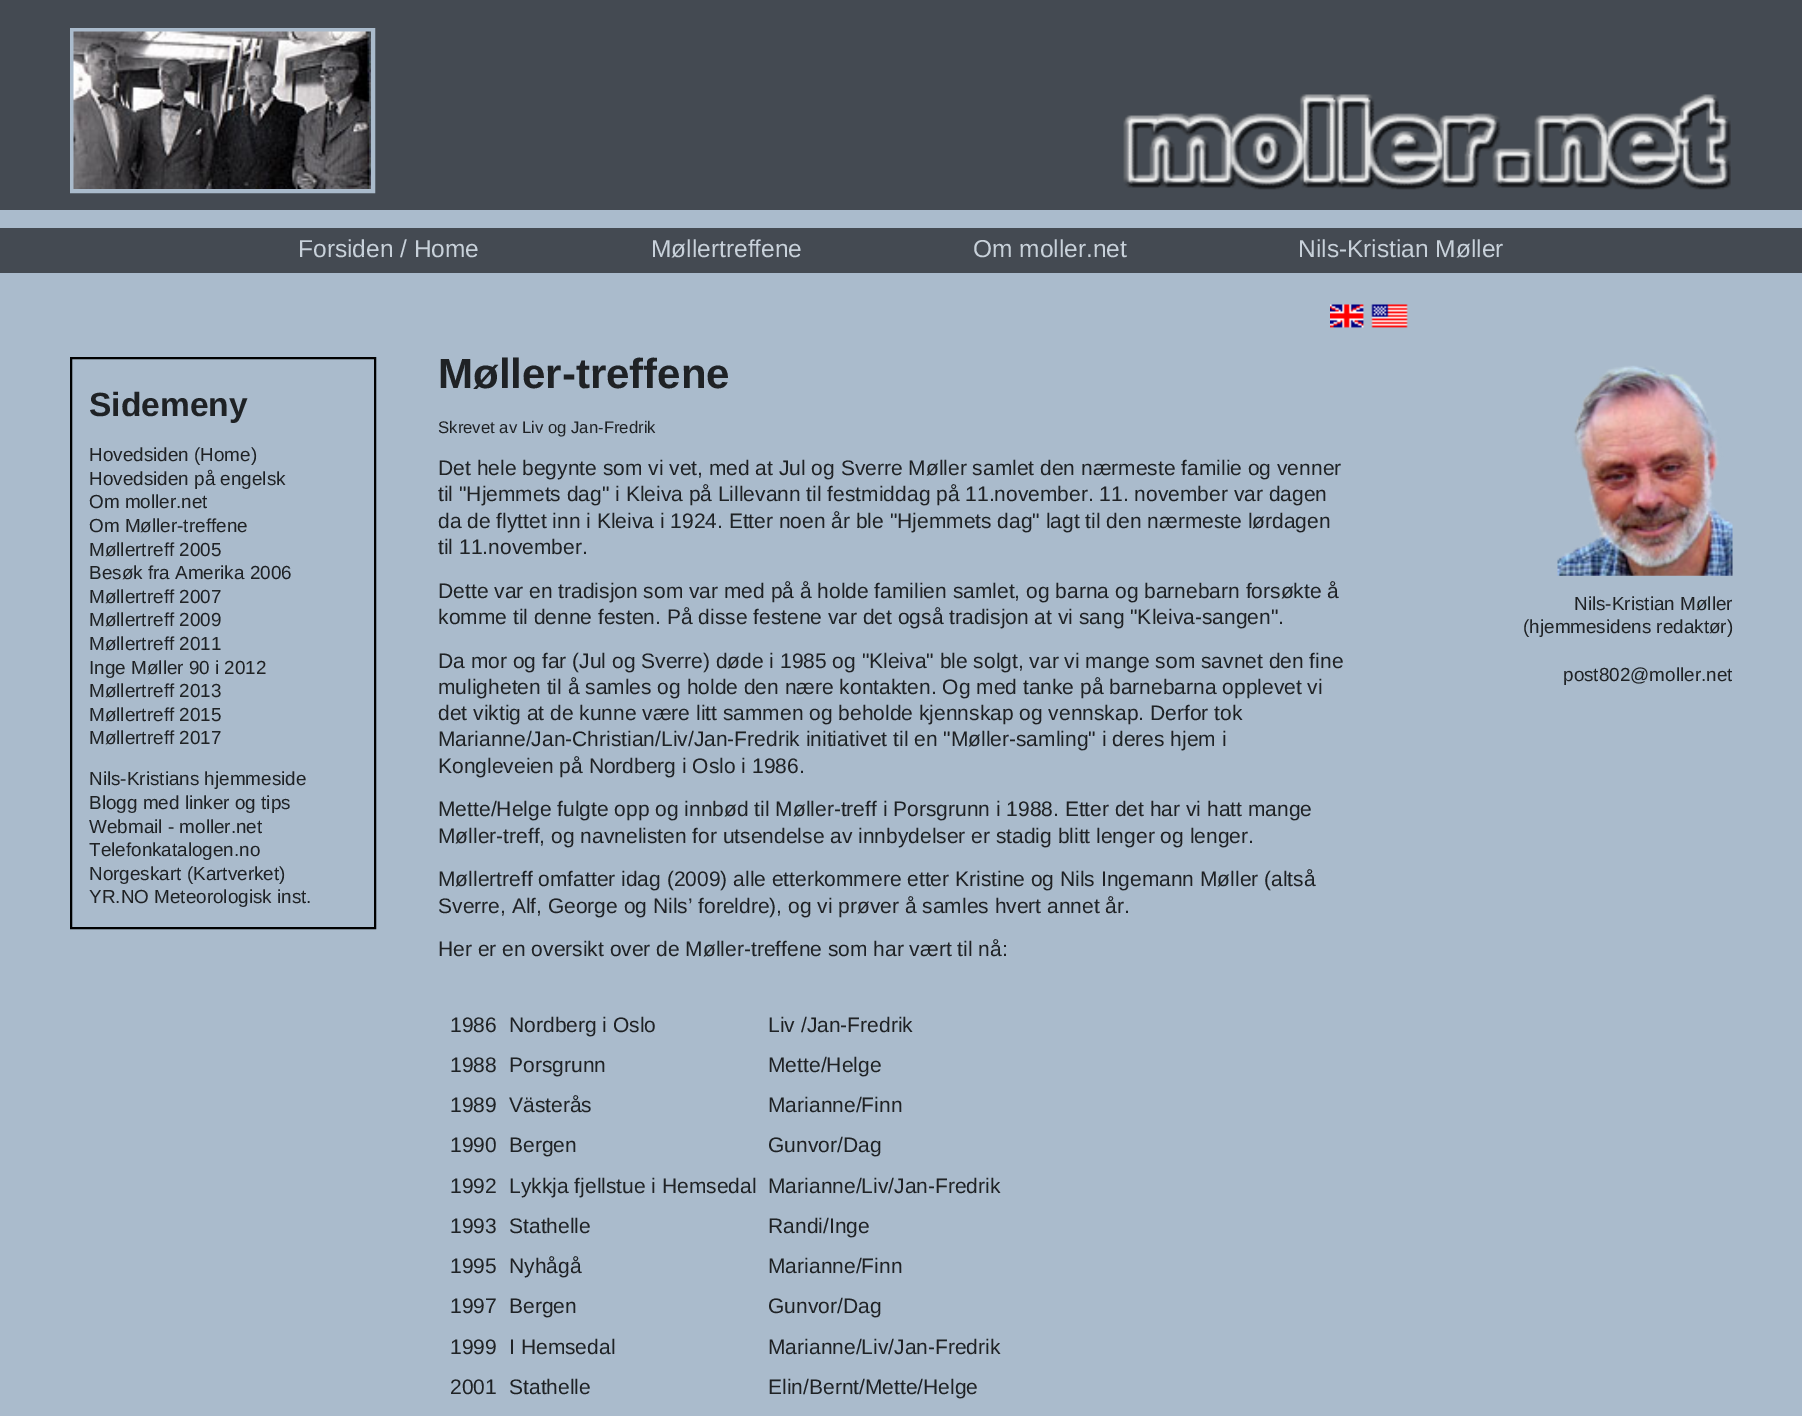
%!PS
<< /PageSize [1802 1416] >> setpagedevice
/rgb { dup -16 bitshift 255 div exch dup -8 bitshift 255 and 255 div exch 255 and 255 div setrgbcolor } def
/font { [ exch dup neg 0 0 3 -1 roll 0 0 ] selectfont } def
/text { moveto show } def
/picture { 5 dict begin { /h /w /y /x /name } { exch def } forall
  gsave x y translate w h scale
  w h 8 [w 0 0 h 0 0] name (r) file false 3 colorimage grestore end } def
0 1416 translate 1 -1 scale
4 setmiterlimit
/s1 { /LiberationSans-Regular 24.5 font 16#C8D1DA rgb } def
/s2 { /LiberationSans-Bold 33.5 font 16#1F2225 rgb } def
/s3 { /LiberationSans-Regular 18.9 font 16#1F2225 rgb } def
/s4 { /LiberationSans-Bold 42 font 16#1F2225 rgb } def
/s5 { /LiberationSans-Regular 16.75 font 16#1F2225 rgb } def
/s6 { /LiberationSans-Regular 21 font 16#1F2225 rgb } def
16#AABBCC rgb
0 0 1802 1416 rectfill
16#444A52 rgb
0 0 1802 210 rectfill
16#AABBCC rgb
4 setlinewidth
72 30 301 161 rectstroke
(pic1.raw) 73 31 298 158 picture
(pic2.raw) 1123 94 608 96 picture
16#444A52 rgb
0 228 1802 45 rectfill
s1
(Forsiden / Home) 298 257 text
(Møllertreffene) 651 257 text
(Om moller.net) 973 257 text
(Nils-Kristian Møller) 1298 257 text
(pic3.raw) 1330 304 78 24 picture
16#000000 rgb
2 setlinewidth
71 358 304 570 rectstroke
s2
(Sidemeny) 89 416 text
s3
(Hovedsiden \(Home\)) 89 461 text
(Hovedsiden på engelsk) 89 485 text
(Om moller.net) 89 508 text
(Om Møller-treffene) 89 532 text
(Møllertreff 2005) 89 556 text
(Besøk fra Amerika 2006) 89 579 text
(Møllertreff 2007) 89 603 text
(Møllertreff 2009) 89 626 text
(Møllertreff 2011) 89 650 text
(Inge Møller 90 i 2012) 89 674 text
(Møllertreff 2013) 89 697 text
(Møllertreff 2015) 89 721 text
(Møllertreff 2017) 89 744 text
(Nils-Kristians hjemmeside) 89 785 text
(Blogg med linker og tips) 89 809 text
(Webmail - moller.net) 89 833 text
(Telefonkatalogen.no) 89 856 text
(Norgeskart \(Kartverket\)) 89 880 text
(YR.NO Meteorologisk inst.) 89 903 text
s4
(Møller-treffene) 438 388 text
s5
(Skrevet av Liv og Jan-Fredrik) 438 433 text
s6
(Det hele begynte som vi vet, med at Jul og Sverre Møller samlet den nærmeste familie og venner) 438 475 text
(til "Hjemmets dag" i Kleiva på Lillevann til festmiddag på 11.november. 11. november var dagen) 438 501 text
(da de flyttet inn i Kleiva i 1924. Etter noen år ble "Hjemmets dag" lagt til den nærmeste lørdagen) 438 528 text
(til 11.november.) 438 554 text
(Dette var en tradisjon som var med på å holde familien samlet, og barna og barnebarn forsøkte å) 438 598 text
(komme til denne festen. På disse festene var det også tradisjon at vi sang "Kleiva-sangen".) 438 624 text
(Da mor og far \(Jul og Sverre\) døde i 1985 og "Kleiva" ble solgt, var vi mange som savnet den fine) 438 668 text
(muligheten til å samles og holde den nære kontakten. Og med tanke på barnebarna opplevet vi) 438 694 text
(det viktig at de kunne være litt sammen og beholde kjennskap og vennskap. Derfor tok) 438 720 text
(Marianne/Jan-Christian/Liv/Jan-Fredrik initiativet til en "Møller-samling" i deres hjem i) 438 746 text
(Kongleveien på Nordberg i Oslo i 1986.) 438 773 text
(Mette/Helge fulgte opp og innbød til Møller-treff i Porsgrunn i 1988. Etter det har vi hatt mange) 438 816 text
(Møller-treff, og navnelisten for utsendelse av innbydelser er stadig blitt lenger og lenger.) 438 843 text
(Møllertreff omfatter idag \(2009\) alle etterkommere etter Kristine og Nils Ingemann Møller \(altså) 438 886 text
(Sverre, Alf, George og Nils’ foreldre\), og vi prøver å samles hvert annet år.) 438 913 text
(Her er en oversikt over de Møller-treffene som har vært til nå:) 438 956 text
(1986) 450 1032 text
(Nordberg i Oslo) 509 1032 text
(Liv /Jan-Fredrik) 768 1032 text
(1988) 450 1072 text
(Porsgrunn) 509 1072 text
(Mette/Helge) 768 1072 text
(1989) 450 1112 text
(Västerås) 509 1112 text
(Marianne/Finn) 768 1112 text
(1990) 450 1152 text
(Bergen) 509 1152 text
(Gunvor/Dag) 768 1152 text
(1992) 450 1193 text
(Lykkja fjellstue i Hemsedal) 509 1193 text
(Marianne/Liv/Jan-Fredrik) 768 1193 text
(1993) 450 1233 text
(Stathelle) 509 1233 text
(Randi/Inge) 768 1233 text
(1995) 450 1273 text
(Nyhågå) 509 1273 text
(Marianne/Finn) 768 1273 text
(1997) 450 1313 text
(Bergen) 509 1313 text
(Gunvor/Dag) 768 1313 text
(1999) 450 1354 text
(I Hemsedal) 509 1354 text
(Marianne/Liv/Jan-Fredrik) 768 1354 text
(2001) 450 1394 text
(Stathelle) 509 1394 text
(Elin/Bernt/Mette/Helge) 768 1394 text
(pic4.raw) 1557 365 176 211 picture
s3
(Nils-Kristian Møller) 1574 610 text
(\(hjemmesidens redaktør\)) 1523 633 text
(post802@moller.net) 1563 681 text
showpage
